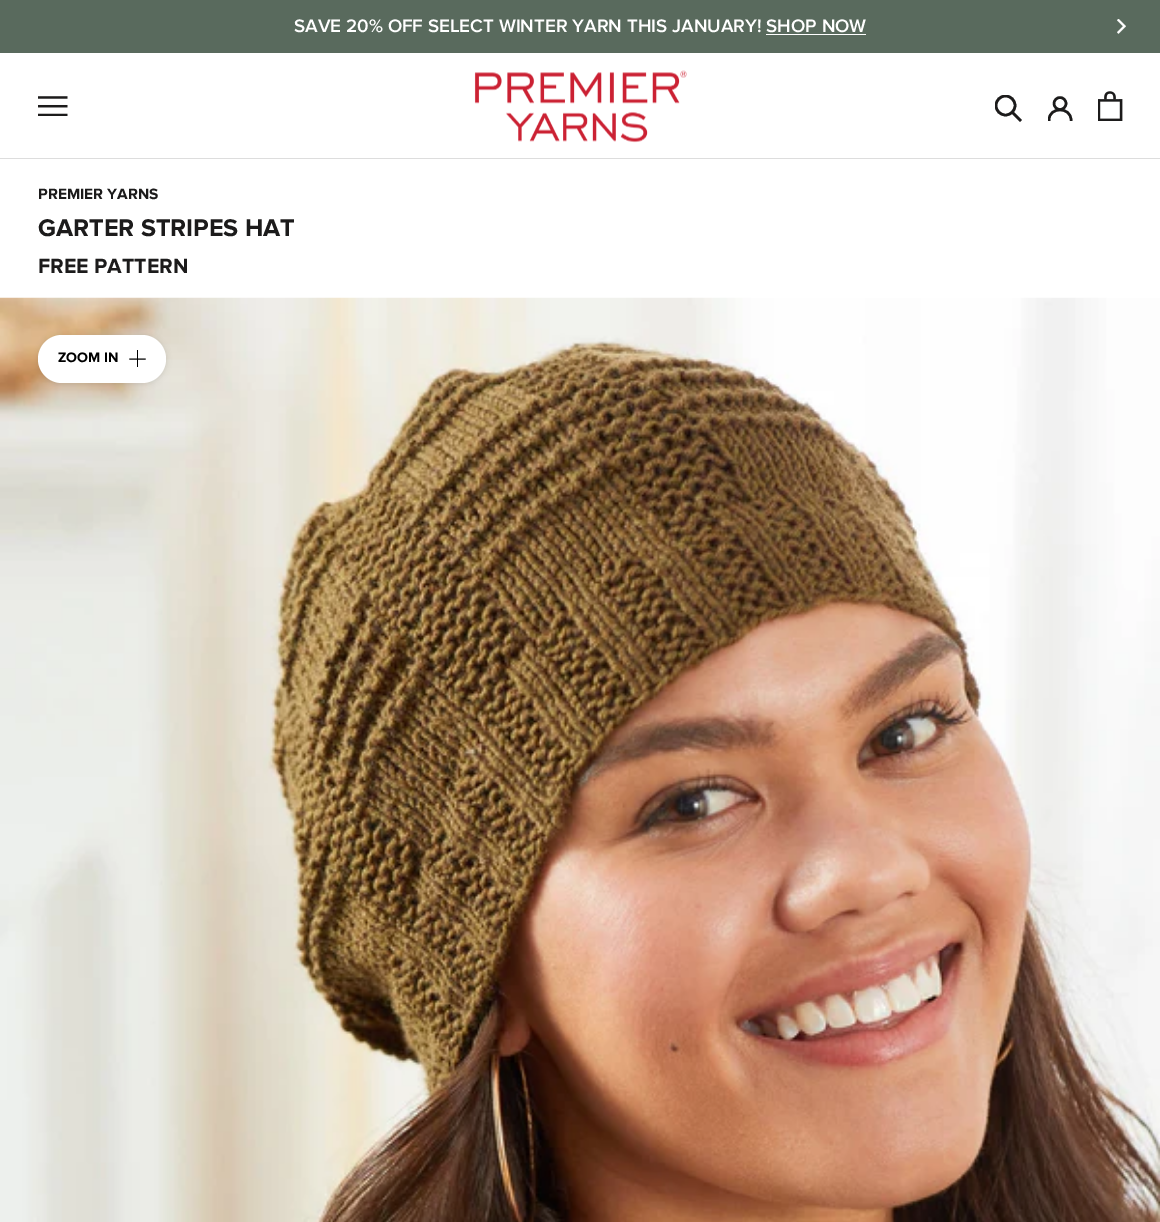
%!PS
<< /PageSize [1160 1222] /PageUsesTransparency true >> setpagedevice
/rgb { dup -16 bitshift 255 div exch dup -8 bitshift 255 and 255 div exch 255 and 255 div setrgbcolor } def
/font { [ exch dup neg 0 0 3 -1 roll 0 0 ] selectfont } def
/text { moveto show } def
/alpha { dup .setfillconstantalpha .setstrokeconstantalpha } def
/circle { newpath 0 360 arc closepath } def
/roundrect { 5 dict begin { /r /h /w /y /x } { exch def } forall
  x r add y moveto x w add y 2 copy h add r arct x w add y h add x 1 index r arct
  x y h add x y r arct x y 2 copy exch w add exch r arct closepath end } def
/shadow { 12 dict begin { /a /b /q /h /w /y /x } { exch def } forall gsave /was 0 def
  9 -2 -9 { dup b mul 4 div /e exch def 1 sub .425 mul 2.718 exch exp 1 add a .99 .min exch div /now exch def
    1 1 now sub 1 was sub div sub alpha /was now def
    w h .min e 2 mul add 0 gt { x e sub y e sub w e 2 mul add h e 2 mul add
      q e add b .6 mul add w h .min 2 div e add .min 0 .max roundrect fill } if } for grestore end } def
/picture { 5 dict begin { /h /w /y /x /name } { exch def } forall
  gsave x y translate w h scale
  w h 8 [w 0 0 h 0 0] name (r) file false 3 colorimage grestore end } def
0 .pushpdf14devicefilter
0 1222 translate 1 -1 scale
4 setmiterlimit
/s1 { /ProximaNova-SemiBold 18.75 font 16#FFFFFF rgb } def
/s2 { /ProximaNova-Bold 15.5 font 16#1C1B1B rgb } def
/s3 { /ProximaNova-Bold 25 font 16#1C1B1B rgb } def
/s4 { /ProximaNova-Bold 21.25 font 16#1C1B1B rgb } def
/s5 { /ProximaNova-Bold 14.25 font 16#000000 rgb } def
16#FFFFFF rgb
0 0 1160 1222 rectfill
16#596A5D rgb
0 0 1160 53 rectfill
s1
(SAVE 20% OFF SELECT WINTER YARN THIS JANUARY! SHOP NOW) 294 32 text
766 34 100 1 rectfill
(pic1.raw) 1117 19 9 15 picture
16#DDDDDD rgb
0 158 1160 1 rectfill
(pic2.raw) 38 96 30 20 picture
(pic3.raw) 474 70 213 73 picture
16#1C1B1B rgb
2.6 setlinewidth
2 setlinecap
1020 120 moveto 1012.5 112.5 lineto stroke
gsave
995 95 28 28 rectclip
0 setlinecap
1005.5 105.5 9.5 circle stroke
grestore
gsave
1048 96 25 25 rectclip
2.5 setlinewidth
1049 120 moveto 1049 106.5 1071 106.5 1071 120 curveto stroke
grestore
2.5 setlinewidth
0 setlinecap
1060 103.5 6 circle stroke
(pic4.raw) 1098 91 25 30 picture
s2
(PREMIER YARNS) 38 199 text
s3
(GARTER STRIPES HAT) 38 236 text
s4
(FREE PATTERN) 38 273 text
(pic5.raw) 0 297 1160 925 picture
16#363636 rgb
38 336 128 48 24 3 0.15 shadow
16#FFFFFF rgb
38 335 128 48 24 roundrect fill
s5
(ZOOM IN) 58 362 text
137 350 1 17 rectfill
1.1 setlinewidth
2 setlinecap
130 359 moveto 145 359 lineto stroke
.poppdf14devicefilter showpage
